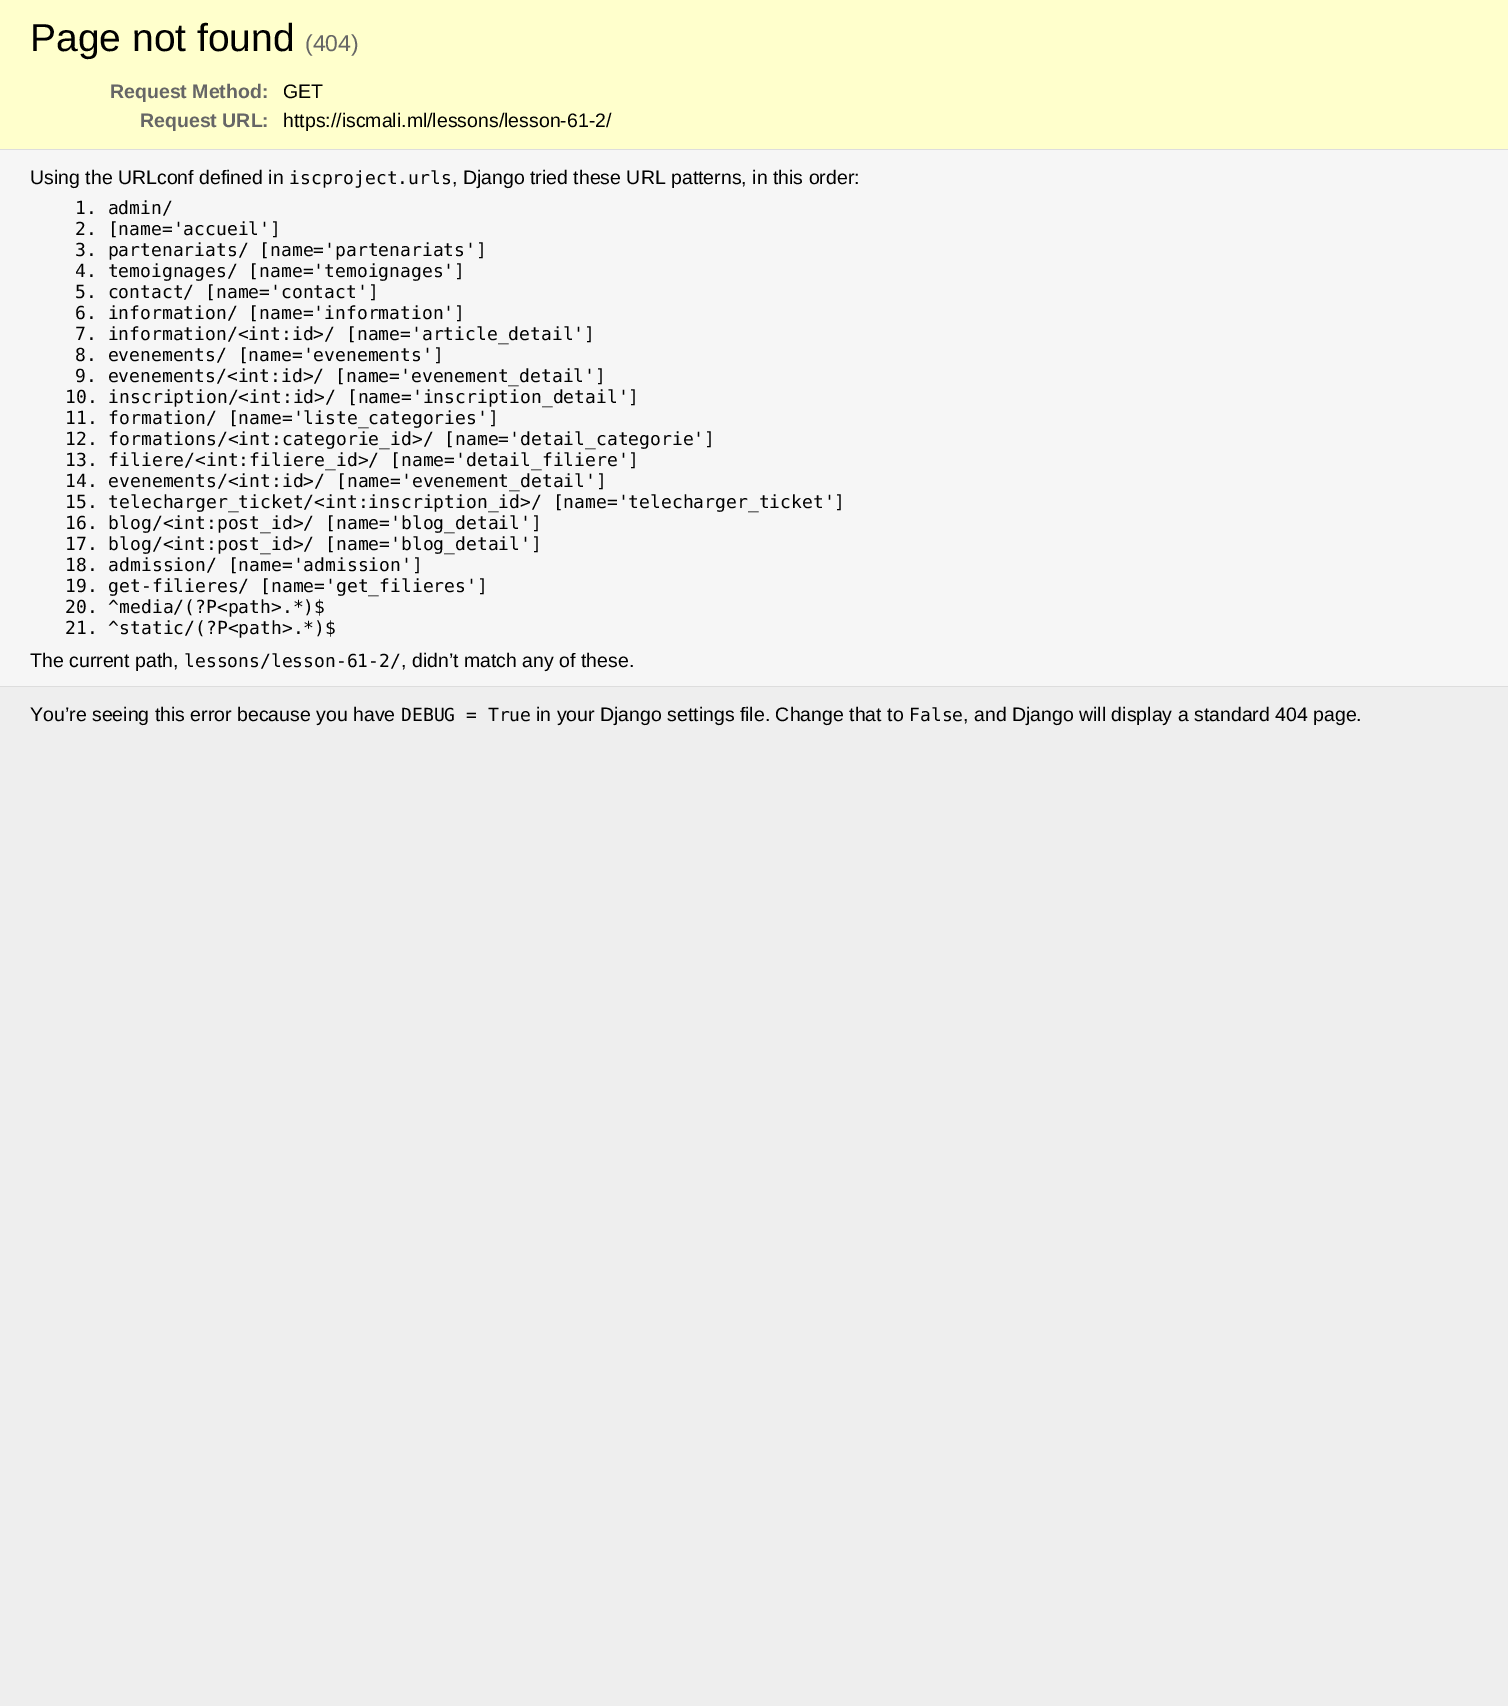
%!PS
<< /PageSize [1508 1706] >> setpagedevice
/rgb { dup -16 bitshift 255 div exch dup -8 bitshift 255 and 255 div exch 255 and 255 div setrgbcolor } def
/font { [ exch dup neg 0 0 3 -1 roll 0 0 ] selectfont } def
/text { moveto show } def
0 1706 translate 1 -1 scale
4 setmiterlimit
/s1 { /LiberationSans-Regular 39 font 16#000000 rgb } def
/s2 { /LiberationSans-Regular 23 font 16#666666 rgb } def
/s3 { /LiberationSans-Bold 19.5 font 16#666666 rgb } def
/s4 { /LiberationSans-Regular 19.5 font 16#000000 rgb } def
/s5 { /DejaVuSansMono-Regular 18 font 16#000000 rgb } def
16#EEEEEE rgb
0 0 1508 1706 rectfill
16#FFFFCC rgb
0 0 1508 149 rectfill
16#DDDDDD rgb
0 149 1508 1 rectfill
s1
(Page not found) 30 51 text
s2
(\(404\)) 305 51 text
s3
(Request Method:) 110 98 text
s4
(GET) 283 98 text
s3
(Request URL:) 140 127 text
s4
(https://iscmali.ml/lessons/lesson-61-2/) 283 127 text
16#F6F6F6 rgb
0 150 1508 536 rectfill
16#DDDDDD rgb
0 686 1508 1 rectfill
s4
(Using the URLconf defined in) 30 184 text
s5
(iscproject.urls) 289 184 text
s4
(, Django tried these URL patterns, in this order:) 452 184 text
s5
(1. admin/) 75 214 text
(2. [name='accueil']) 75 235 text
(3. partenariats/ [name='partenariats']) 75 256 text
(4. temoignages/ [name='temoignages']) 75 277 text
(5. contact/ [name='contact']) 75 298 text
(6. information/ [name='information']) 75 319 text
(7. information/<int:id>/ [name='article_detail']) 75 340 text
(8. evenements/ [name='evenements']) 75 361 text
(9. evenements/<int:id>/ [name='evenement_detail']) 75 382 text
(10. inscription/<int:id>/ [name='inscription_detail']) 65 403 text
(11. formation/ [name='liste_categories']) 65 424 text
(12. formations/<int:categorie_id>/ [name='detail_categorie']) 65 445 text
(13. filiere/<int:filiere_id>/ [name='detail_filiere']) 65 466 text
(14. evenements/<int:id>/ [name='evenement_detail']) 65 487 text
(15. telecharger_ticket/<int:inscription_id>/ [name='telecharger_ticket']) 65 508 text
(16. blog/<int:post_id>/ [name='blog_detail']) 65 529 text
(17. blog/<int:post_id>/ [name='blog_detail']) 65 550 text
(18. admission/ [name='admission']) 65 571 text
(19. get-filieres/ [name='get_filieres']) 65 592 text
(20. ^media/\(?P<path>.*\)$) 65 613 text
(21. ^static/\(?P<path>.*\)$) 65 634 text
s4
(The current path,) 30 667 text
s5
(lessons/lesson-61-2/) 184 667 text
s4
(, didn’t match any of these.) 401 667 text
(You’re seeing this error because you have) 30 721 text
s5
(DEBUG = True) 401 721 text
s4
(in your Django settings file. Change that to) 536 721 text
s5
(False) 909 721 text
s4
(, and Django will display a standard 404 page.) 963 721 text
showpage
